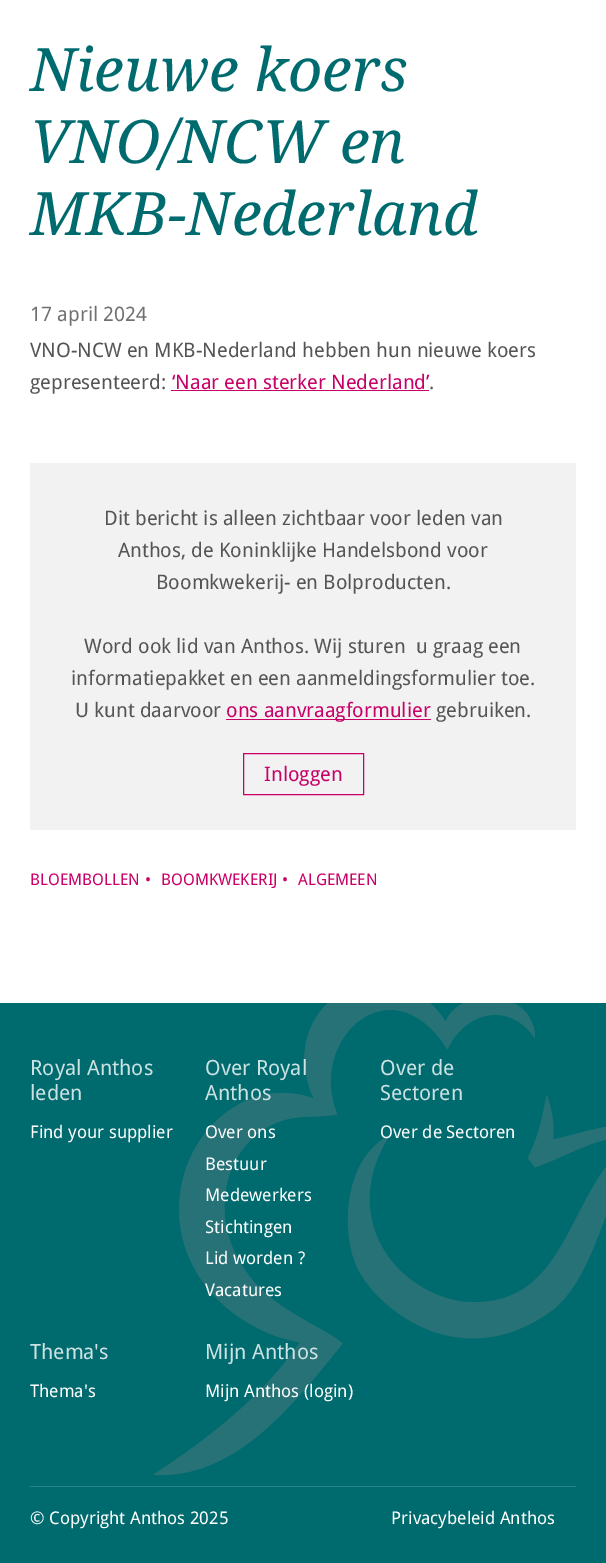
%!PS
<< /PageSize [606 1563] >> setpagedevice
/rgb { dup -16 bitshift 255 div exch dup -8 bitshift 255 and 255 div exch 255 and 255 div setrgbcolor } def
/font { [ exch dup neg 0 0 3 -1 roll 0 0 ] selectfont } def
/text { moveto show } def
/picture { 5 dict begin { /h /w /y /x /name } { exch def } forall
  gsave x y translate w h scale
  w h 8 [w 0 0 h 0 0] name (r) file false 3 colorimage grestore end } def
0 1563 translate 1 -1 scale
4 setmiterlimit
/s1 { /DroidSerif-Italic 60 font 16#006B6F rgb } def
/s2 { /DroidSans-Regular 20 font 16#727171 rgb } def
/s3 { /DroidSans-Regular 20 font 16#555555 rgb } def
/s4 { /DroidSans-Regular 20 font 16#C80067 rgb } def
/s5 { /DroidSans-Regular 16 font 16#C80067 rgb } def
/s6 { /DroidSans-Regular 21 font 16#CCE1E2 rgb } def
/s7 { /DroidSans-Regular 17.5 font 16#FFFFFF rgb } def
16#FFFFFF rgb
0 0 606 1563 rectfill
s1
(Nieuwe koers) 30 91 text
(VNO/NCW en) 30 163 text
(MKB-Nederland) 30 235 text
s2
(17 april 2024) 30 321 text
s3
(VNO-NCW en MKB-Nederland hebben hun nieuwe koers) 30 357 text
(gepresenteerd:) 30 389 text
s4
(‘Naar een sterker Nederland’) 172 389 text
171 390 258 1 rectfill
s3
(.) 429 389 text
16#F2F2F2 rgb
30 463 546 367 rectfill
s3
(Dit bericht is alleen zichtbaar voor leden van) 104 525 text
(Anthos, de Koninklijke Handelsbond voor) 118 557 text
(Boomkwekerij- en Bolproducten.) 156 589 text
(Word ook lid van Anthos. Wij sturen  u graag een) 84 653 text
(informatiepakket en een aanmeldingsformulier toe.) 71 685 text
(U kunt daarvoor) 75 717 text
16#C80067 rgb
226 719 205 1 rectfill
(ons aanvraagformulier) 226 717 text
s3
(gebruiken.) 436 717 text
16#C80067 rgb
243.5 753.5 120 41 rectstroke
(Inloggen) 264 781 text
s5
(BLOEMBOLLEN) 30 885 text
(•) 145 885 text
(BOOMKWEKERIJ) 161 885 text
(•) 282 885 text
(ALGEMEEN) 298 885 text
16#006B6F rgb
0 1003 606 560 rectfill
(pic1.raw) 153 1003 453 473 picture
s6
(Royal Anthos) 30 1075 text
(leden) 30 1100 text
s7
(Find your supplier) 30 1138 text
s6
(Over Royal) 205 1075 text
(Anthos) 205 1100 text
s7
(Over ons) 205 1138 text
(Bestuur) 205 1170 text
(Medewerkers) 205 1201 text
(Stichtingen) 205 1233 text
(Lid worden ?) 205 1264 text
(Vacatures) 205 1296 text
s6
(Over de) 380 1075 text
(Sectoren) 380 1100 text
s7
(Over de Sectoren) 380 1138 text
s6
(Thema's) 30 1359 text
s7
(Thema's) 30 1397 text
s6
(Mijn Anthos) 205 1359 text
s7
(Mijn Anthos \(login\)) 205 1397 text
16#298588 rgb
30 1486 546 1 rectfill
s7
(© Copyright Anthos 2025) 30 1524 text
(Privacybeleid Anthos) 391 1524 text
showpage
